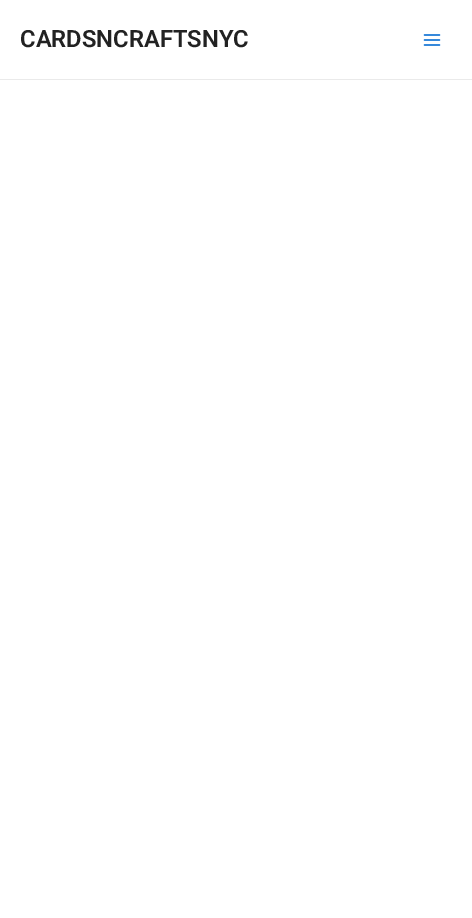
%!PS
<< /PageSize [472 918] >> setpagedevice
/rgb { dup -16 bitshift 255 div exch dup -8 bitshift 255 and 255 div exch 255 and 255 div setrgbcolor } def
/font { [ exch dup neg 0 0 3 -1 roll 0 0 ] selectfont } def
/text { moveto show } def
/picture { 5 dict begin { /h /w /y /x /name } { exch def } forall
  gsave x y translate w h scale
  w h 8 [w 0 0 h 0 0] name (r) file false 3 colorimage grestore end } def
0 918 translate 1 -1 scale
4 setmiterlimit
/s1 { /Roboto-SemiBold 23.75 font 16#222222 rgb } def
16#FFFFFF rgb
0 0 472 918 rectfill
16#EAEAEA rgb
0 79 472 1 rectfill
s1
(CARDSNCRAFTSNYC) 20 47 text
(pic1.raw) 423 34 18 12 picture
showpage
